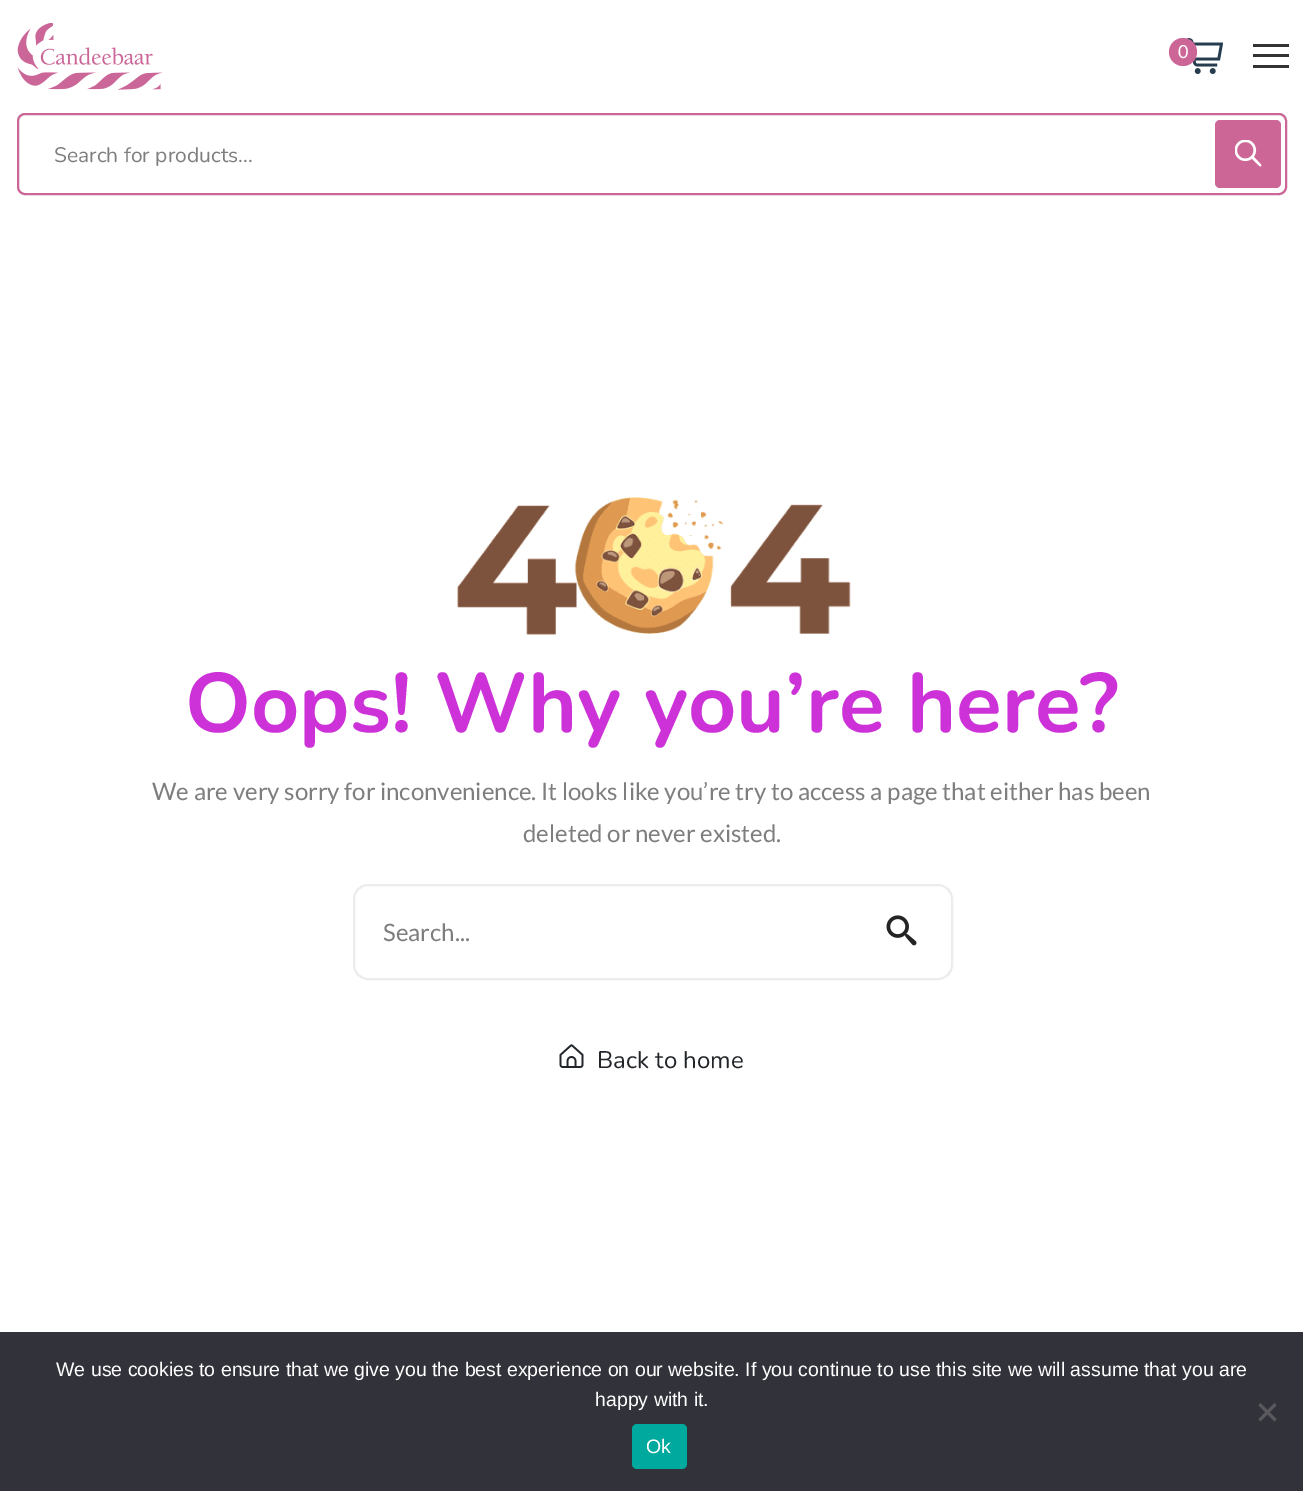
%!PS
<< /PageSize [1303 1491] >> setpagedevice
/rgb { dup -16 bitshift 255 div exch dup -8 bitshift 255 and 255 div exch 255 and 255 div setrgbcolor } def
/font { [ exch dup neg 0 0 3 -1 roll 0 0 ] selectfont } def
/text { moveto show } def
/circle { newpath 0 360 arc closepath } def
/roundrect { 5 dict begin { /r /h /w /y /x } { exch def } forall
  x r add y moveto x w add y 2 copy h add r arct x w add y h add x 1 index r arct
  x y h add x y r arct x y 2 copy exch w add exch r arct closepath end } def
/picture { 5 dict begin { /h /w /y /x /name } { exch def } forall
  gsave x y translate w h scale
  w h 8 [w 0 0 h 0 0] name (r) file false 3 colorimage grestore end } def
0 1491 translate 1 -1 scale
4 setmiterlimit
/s1 { /Lato-Regular 18 font 16#FFFFFF rgb } def
/s2 { /Nunito-Regular 21 font 16#7E7E7E rgb } def
/s3 { /Nunito-Bold 84 font 16#CD31D8 rgb } def
/s4 { /Lato-Regular 24 font 16#7E7E7E rgb } def
/s5 { /Nunito-Regular 24 font 16#212529 rgb } def
/s6 { /LiberationSans-Regular 19.5 font 16#FFFFFF rgb } def
16#FFFFFF rgb
0 0 1303 1491 rectfill
(pic1.raw) 17 23 146 67 picture
(pic2.raw) 1187 38 36 36 picture
16#CC6697 rgb
1183 52 14 circle fill
s1
(0) 1178 58 text
16#333333 rgb
1253 44 36 3 rectfill
1253 54 36 3 rectfill
1253 65 36 3 rectfill
16#CC6697 rgb
2 setlinewidth
18 114 1268 80 7 roundrect stroke
s2
(Search for products...) 54 162 text
16#CC6697 rgb
1215 120 66 68 5 roundrect fill
(pic3.raw) 1235 140 27 27 picture
(pic4.raw) 457 497 394 138 picture
s3
(Oops! Why you’re here?) 185 732 text
s4
(We are very sorry for inconvenience. It looks like you’re try to access a page that either has been) 152 800 text
(deleted or never existed.) 523 842 text
16#ECECEC rgb
354 885 598 94 14 roundrect stroke
s4
(Search...) 383 941 text
(pic5.raw) 886 915 31 31 picture
(pic6.raw) 559 1044 25 24 picture
s5
(Back to home) 597 1068 text
16#32323A rgb
0 1332 1303 159 rectfill
s6
(We use cookies to ensure that we give you the best experience on our website. If you continue to use this site we will assume that you are) 56 1376 text
(happy with it.) 595 1406 text
16#59595D rgb
1274.5 1403 moveto 1276.5 1405.5 lineto 1260.5 1421.5 lineto 1258.5 1419 lineto closepath fill
1258.5 1405.5 moveto 1260.5 1403 lineto 1276.5 1419 lineto 1274.5 1421.5 lineto closepath fill
16#00A99D rgb
632 1424 55 45 5 roundrect fill
s6
(Ok) 646 1453 text
showpage
